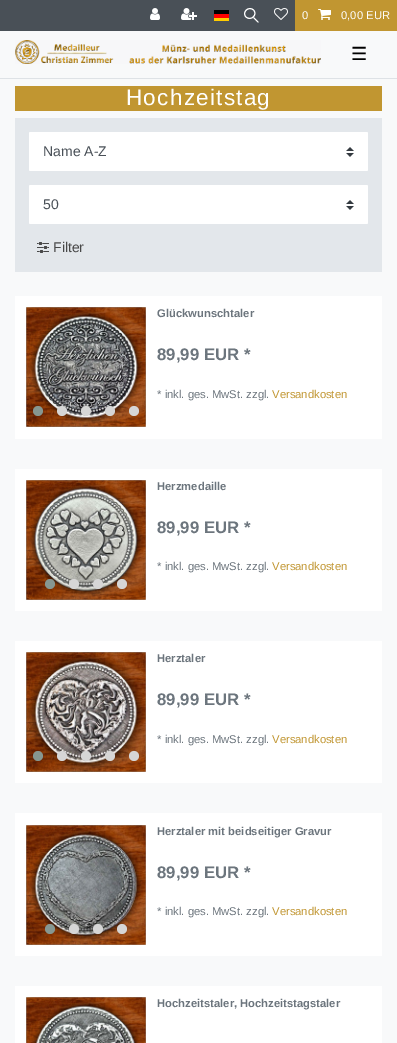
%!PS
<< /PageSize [397 1043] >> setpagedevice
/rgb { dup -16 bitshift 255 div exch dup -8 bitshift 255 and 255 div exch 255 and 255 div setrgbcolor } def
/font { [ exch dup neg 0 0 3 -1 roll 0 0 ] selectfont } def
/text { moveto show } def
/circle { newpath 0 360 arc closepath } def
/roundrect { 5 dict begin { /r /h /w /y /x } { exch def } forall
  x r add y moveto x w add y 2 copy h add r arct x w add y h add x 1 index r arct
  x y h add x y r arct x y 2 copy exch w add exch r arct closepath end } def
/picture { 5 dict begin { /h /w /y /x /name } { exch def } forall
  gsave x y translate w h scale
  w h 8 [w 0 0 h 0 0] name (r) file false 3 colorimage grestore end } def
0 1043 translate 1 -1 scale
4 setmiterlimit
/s1 { /LiberationSans-Regular 11.25 font 16#FFFFFF rgb } def
/s2 { /DejaVuSans-Regular 18 font 16#000000 rgb } def
/s3 { /LiberationSans-Regular 14 font 16#495057 rgb } def
/s4 { /LiberationSans-Regular 14 font 16#484848 rgb } def
/s5 { /LiberationSans-Bold 11.25 font 16#6C757D rgb } def
/s6 { /LiberationSans-Bold 16.75 font 16#6C757D rgb } def
/s7 { /LiberationSans-Regular 11.25 font 16#6C757D rgb } def
/s8 { /LiberationSans-Regular 11.25 font 16#C19631 rgb } def
16#F8F9FA rgb
0 0 397 1043 rectfill
16#495057 rgb
0 0 295 31 rectfill
(pic1.raw) 150 8 10 12 picture
(pic2.raw) 181 8 16 12 picture
16#FFCC00 rgb
214 18 15 3 rectfill
16#000000 rgb
214 10 15 4 rectfill
16#FF0000 rgb
214 14 15 4 rectfill
16#FFFFFF rgb
258 22.5 moveto 256.5 21 247.5 12.5 248 12 curveto 248.5 11.5 lineto 258.5 22 lineto 259 22.5 258.5 22.5 258 22.5 curveto closepath fill
16#495057 rgb
246 17.5 moveto 241 12.5 248.5 4.5 253.5 9.5 curveto 258.5 14.5 251 22.5 246 17.5 curveto closepath fill
16#FFFFFF rgb
246 17 moveto 241.5 12.5 248.5 5.5 253.5 10 curveto 258 14.5 251 21.5 246 17 curveto closepath stroke
(pic3.raw) 274 8 14 12 picture
16#C19631 rgb
295 0 102 31 rectfill
s1
(0) 302 19 text
(pic4.raw) 318 9 13 11 picture
(0,00 EUR) 341 19 text
16#DEE2E6 rgb
0 78 397 1 rectfill
(pic5.raw) 15 40 306 24 picture
s2
(☰) 351 60 text
16#C19631 rgb
15 86 367 25 rectfill
/LiberationSans-Regular 22.5 font
16#FFFFFF rgb
126 105 moveto 1.25 0 (Hochzeitstag) ashow
16#E3E7EB rgb
15 118 367 154 rectfill
16#FFFFFF rgb
29 132 339 39 1.5 roundrect fill
(pic6.raw) 346 147 8 10 picture
s3
(Name A-Z) 43 156 text
16#FFFFFF rgb
29 185 339 39 1.5 roundrect fill
(pic6.raw) 346 200 8 10 picture
s3
(50) 43 209 text
(pic7.raw) 37 242 12 11 picture
s4
(Filter) 53 252 text
16#FFFFFF rgb
15 296 367 143 rectfill
(pic8.raw) 26 307 120 120 picture
16#869791 rgb
38 411 5 circle fill
16#D6D6D6 rgb
62 411 5 circle fill
86 411 5 circle fill
110 411 5 circle fill
134 411 5 circle fill
s5
(Glückwunschtaler) 157 317 text
s6
(89,99 EUR *) 157 360 text
s7
(* inkl. ges. MwSt. zzgl.) 157 398 text
s8
(Versandkosten) 272 398 text
16#FFFFFF rgb
15 469 367 142 rectfill
(pic9.raw) 26 480 120 120 picture
16#869791 rgb
50 584 5 circle fill
16#D6D6D6 rgb
74 584 5 circle fill
98 584 5 circle fill
122 584 5 circle fill
s5
(Herzmedaille) 157 490 text
s6
(89,99 EUR *) 157 533 text
s7
(* inkl. ges. MwSt. zzgl.) 157 570 text
s8
(Versandkosten) 272 570 text
16#FFFFFF rgb
15 641 367 142 rectfill
(pic10.raw) 26 652 120 120 picture
16#869791 rgb
38 756 5 circle fill
16#D6D6D6 rgb
62 756 5 circle fill
86 756 5 circle fill
110 756 5 circle fill
134 756 5 circle fill
s5
(Herztaler) 157 662 text
s6
(89,99 EUR *) 157 705 text
s7
(* inkl. ges. MwSt. zzgl.) 157 743 text
s8
(Versandkosten) 272 743 text
16#FFFFFF rgb
15 813 367 143 rectfill
(pic11.raw) 26 825 120 120 picture
16#869791 rgb
50 929 5 circle fill
16#D6D6D6 rgb
74 929 5 circle fill
98 929 5 circle fill
122 929 5 circle fill
s5
(Herztaler mit beidseitiger Gravur) 157 835 text
s6
(89,99 EUR *) 157 878 text
s7
(* inkl. ges. MwSt. zzgl.) 157 915 text
s8
(Versandkosten) 272 915 text
16#FFFFFF rgb
15 986 367 57 rectfill
(pic12.raw) 26 997 120 46 picture
s5
(Hochzeitstaler, Hochzeitstagstaler) 157 1007 text
showpage
